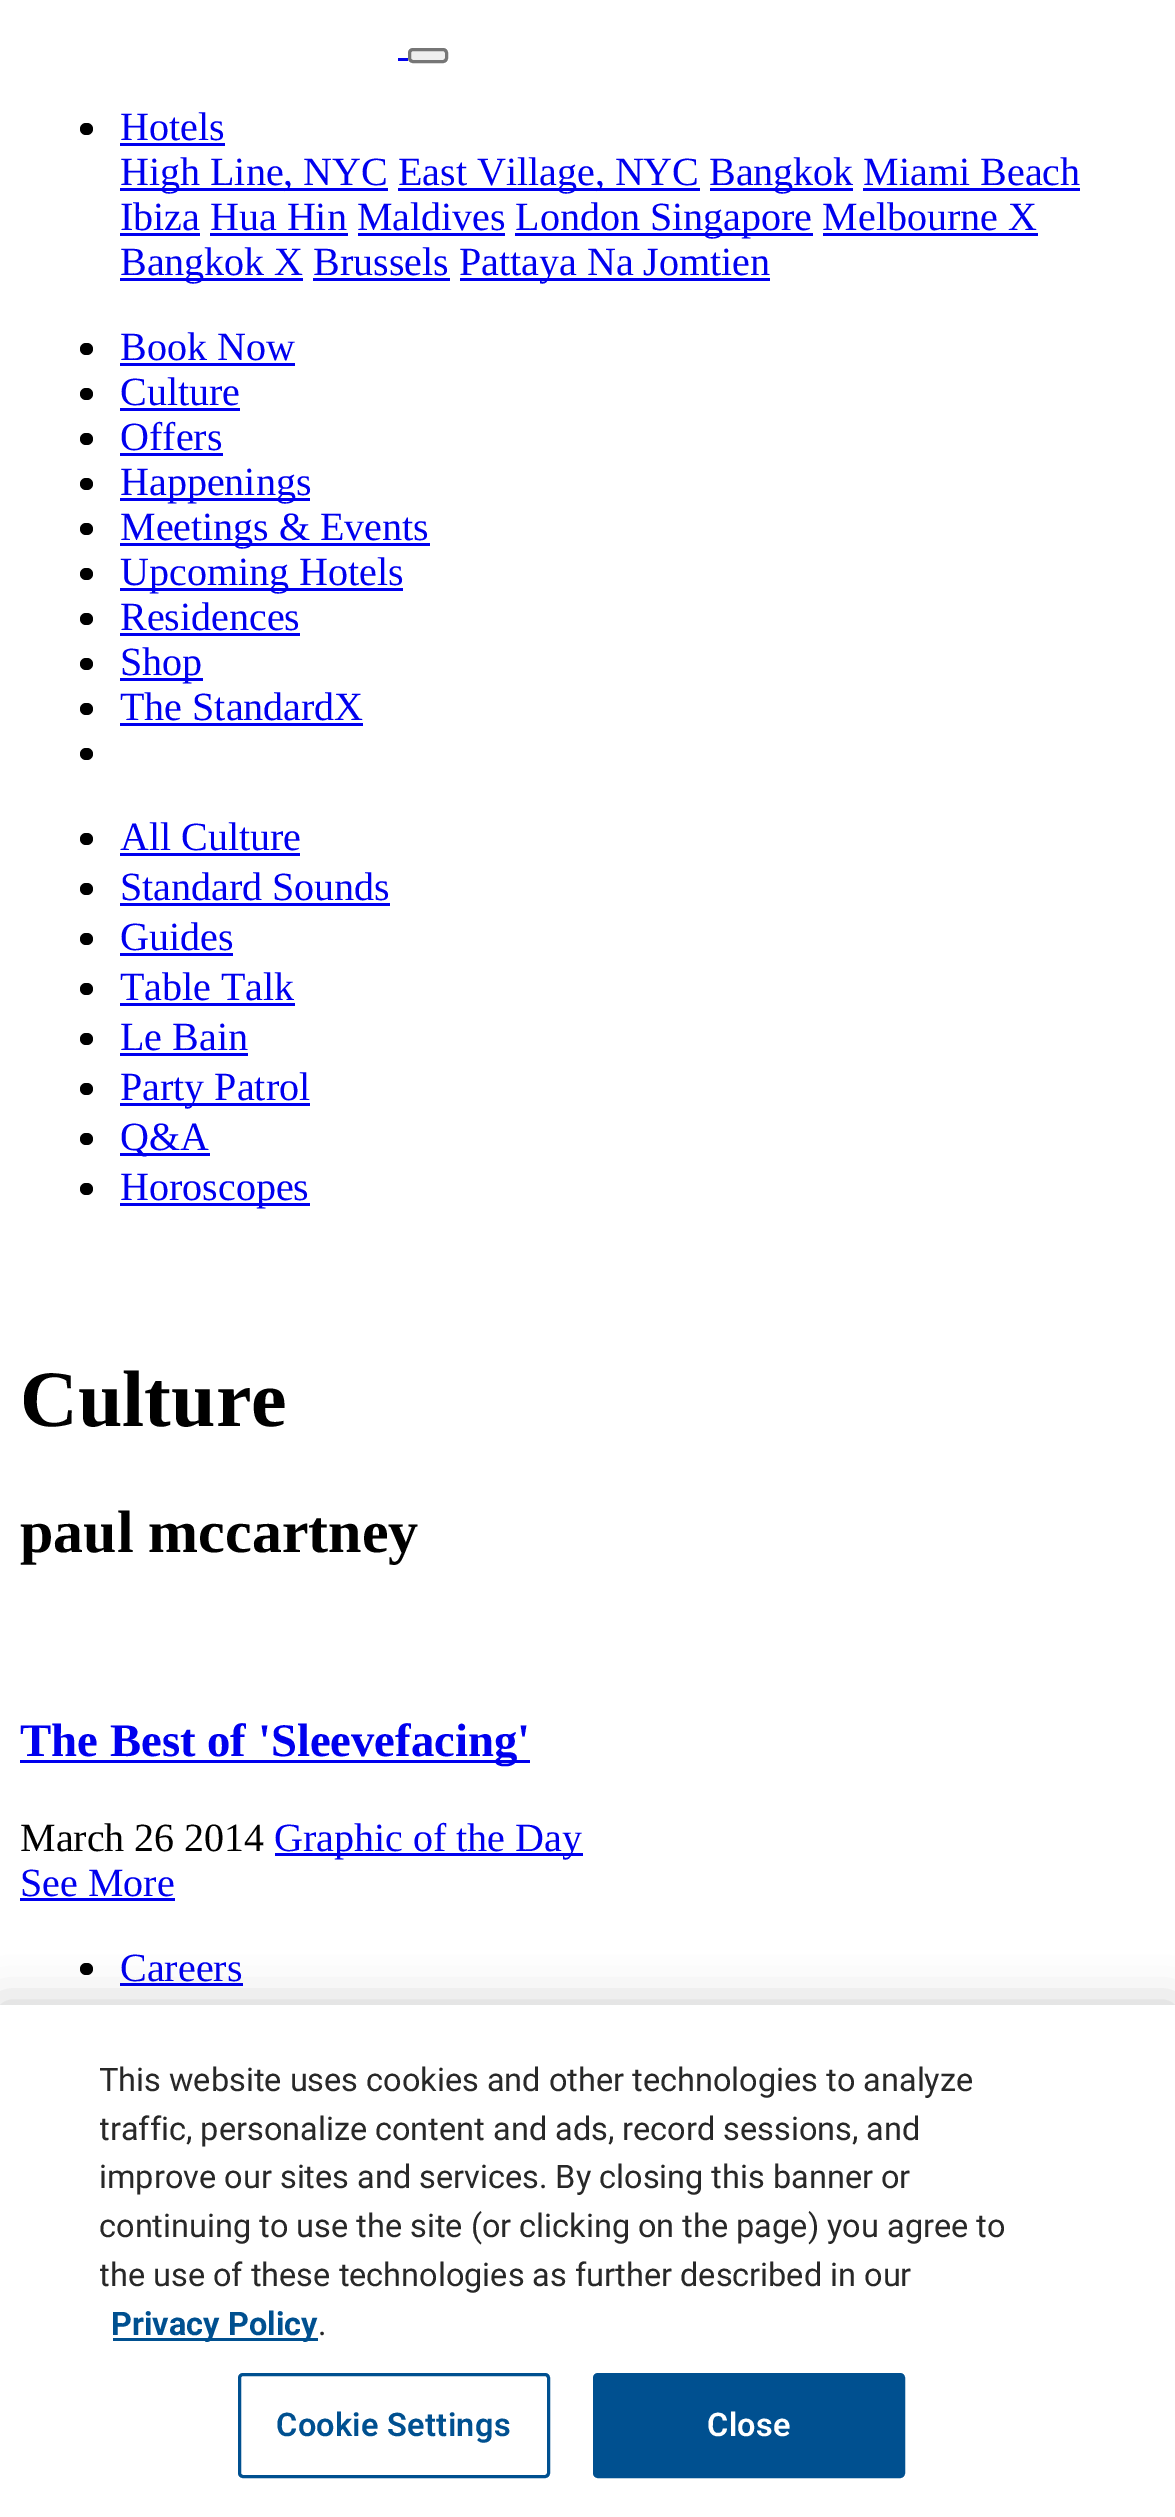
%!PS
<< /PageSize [1175 2517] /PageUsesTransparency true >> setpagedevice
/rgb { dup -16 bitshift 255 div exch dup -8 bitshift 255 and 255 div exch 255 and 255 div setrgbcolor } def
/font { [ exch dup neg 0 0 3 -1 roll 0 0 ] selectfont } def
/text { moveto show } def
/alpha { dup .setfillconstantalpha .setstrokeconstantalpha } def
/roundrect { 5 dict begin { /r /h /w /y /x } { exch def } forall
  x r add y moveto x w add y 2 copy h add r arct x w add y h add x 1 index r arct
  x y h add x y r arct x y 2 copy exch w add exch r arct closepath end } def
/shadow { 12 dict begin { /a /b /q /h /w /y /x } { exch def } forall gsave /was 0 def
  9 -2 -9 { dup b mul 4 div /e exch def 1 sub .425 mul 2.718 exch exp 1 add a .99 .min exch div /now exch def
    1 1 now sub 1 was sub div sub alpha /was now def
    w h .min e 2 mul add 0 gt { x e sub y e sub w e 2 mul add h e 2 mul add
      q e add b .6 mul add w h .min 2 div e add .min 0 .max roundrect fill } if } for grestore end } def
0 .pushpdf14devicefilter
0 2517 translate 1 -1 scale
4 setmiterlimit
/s1 { /LiberationSerif-Regular 40 font 16#0000EE rgb } def
/s2 { /LiberationSerif-Bold 80 font 16#000000 rgb } def
/s3 { /LiberationSerif-Bold 60 font 16#000000 rgb } def
/s4 { /LiberationSerif-Bold 46.75 font 16#0000EE rgb } def
/s5 { /LiberationSerif-Regular 40 font 16#000000 rgb } def
/s6 { /Roboto-Regular 32.5 font 16#282828 rgb } def
/s7 { /Roboto-Bold 32.5 font 16#005090 rgb } def
16#FFFFFF rgb
0 0 1175 2517 rectfill
16#0000EE rgb
398 58 10 3 rectfill
16#EFEFEF rgb
409.5 49.5 37 12 3.5 roundrect gsave fill grestore
16#767676 rgb
3 setlinewidth
stroke
16#000000 rgb
80 123 13 12 6 roundrect fill
s1
(Hotels) 120 140 text
120 143 105 3 rectfill
120 188 268 3 rectfill
(High Line, NYC) 120 185 text
398 188 302 3 rectfill
(East Village, NYC) 398 185 text
710 188 143 3 rectfill
(Bangkok Miami Beach) 709 185 text
863 188 217 3 rectfill
(Ibiza Hua Hin Maldives London) 120 230 text
120 233 80 3 rectfill
515 233 298 3 rectfill
(Singapore Melbourne X) 650 230 text
210 233 138 3 rectfill
358 233 147 3 rectfill
823 233 215 3 rectfill
120 278 183 3 rectfill
(Bangkok X Brussels) 120 275 text
460 278 310 3 rectfill
(Pattaya Na Jomtien) 459 275 text
313 278 137 3 rectfill
16#000000 rgb
80 343 13 12 6 roundrect fill
s1
(Book Now) 120 360 text
120 363 175 3 rectfill
16#000000 rgb
80 388 13 12 6 roundrect fill
s1
(Culture) 120 405 text
120 408 120 3 rectfill
16#000000 rgb
80 433 13 12 6 roundrect fill
s1
(Offers) 120 450 text
120 453 103 3 rectfill
16#000000 rgb
80 478 13 12 6 roundrect fill
16#0000EE rgb
120 498 190 3 rectfill
(Happenings) 120 495 text
16#000000 rgb
80 523 13 12 6 roundrect fill
16#0000EE rgb
120 543 310 3 rectfill
(Meetings & Events) 120 540 text
16#000000 rgb
80 568 13 12 6 roundrect fill
16#0000EE rgb
120 588 283 3 rectfill
(Upcoming Hotels) 120 585 text
16#000000 rgb
80 613 13 12 6 roundrect fill
s1
(Residences) 120 630 text
120 633 180 3 rectfill
16#000000 rgb
80 658 13 12 6 roundrect fill
16#0000EE rgb
120 678 83 3 rectfill
(Shop) 120 675 text
16#000000 rgb
80 703 13 12 6 roundrect fill
s1
(The StandardX) 120 720 text
120 723 243 3 rectfill
16#000000 rgb
80 748 13 12 6 roundrect fill
80 833 13 12 6 roundrect fill
s1
(All Culture) 120 850 text
120 853 180 3 rectfill
16#000000 rgb
80 883 13 12 6 roundrect fill
s1
(Standard Sounds) 120 900 text
120 903 270 3 rectfill
16#000000 rgb
80 933 13 12 6 roundrect fill
s1
(Guides) 120 950 text
120 953 113 3 rectfill
16#000000 rgb
80 983 13 12 6 roundrect fill
s1
(Table Talk) 120 1000 text
120 1003 175 3 rectfill
16#000000 rgb
80 1033 13 12 6 roundrect fill
s1
(Le Bain) 120 1050 text
120 1053 128 3 rectfill
16#000000 rgb
80 1083 13 12 6 roundrect fill
16#0000EE rgb
120 1103 190 3 rectfill
(Party Patrol) 120 1100 text
16#000000 rgb
80 1133 13 12 6 roundrect fill
16#0000EE rgb
120 1153 90 3 rectfill
(Q&A) 120 1150 text
16#000000 rgb
80 1183 13 12 6 roundrect fill
16#0000EE rgb
120 1203 190 3 rectfill
(Horoscopes) 120 1200 text
s2
(Culture) 20 1426 text
s3
(paul mccartney) 20 1552 text
16#0000EE rgb
20 1760 510 3 rectfill
s4
(The Best of 'Sleevefacing') 20 1756 text
s5
(March 26 2014) 20 1851 text
16#0000EE rgb
275 1853 308 3 rectfill
(Graphic of the Day) 274 1851 text
(See More) 20 1896 text
20 1898 155 3 rectfill
16#000000 rgb
80 1963 13 12 6 roundrect fill
s1
(Careers) 120 1981 text
120 1983 123 3 rectfill
16#000000 rgb
0 2005 1175 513 0 22.5 0.2 shadow
16#FFFFFF rgb
0 2005 1175 512 rectfill
gsave
100 2055 923 293 rectclip
s6
(This website uses cookies and other technologies to analyze) 99 2091 text
(traffic, personalize content and ads, record sessions, and) 99 2140 text
grestore
s6
(improve our sites and services. By closing this banner or) 99 2188 text
(continuing to use the site \(or clicking on the page\) you agree to) 99 2237 text
gsave
100 2055 923 293 rectclip
(the use of these technologies as further described in our) 99 2286 text
grestore
16#005090 rgb
113 2338 205 3 rectfill
s7
(Privacy Policy) 111 2335 text
s6
(.) 318 2335 text
16#005090 rgb
239.5 2374.5 309 102 3.5 roundrect stroke
/Roboto-SemiBold 32.5 font
276 2436 moveto 0.3 0 (Cookie Settings) ashow
594.5 2374.5 309 102 3.5 roundrect gsave fill grestore
stroke
16#FFFFFF rgb
707 2436 moveto 0.3 0 (Close) ashow
.poppdf14devicefilter showpage
